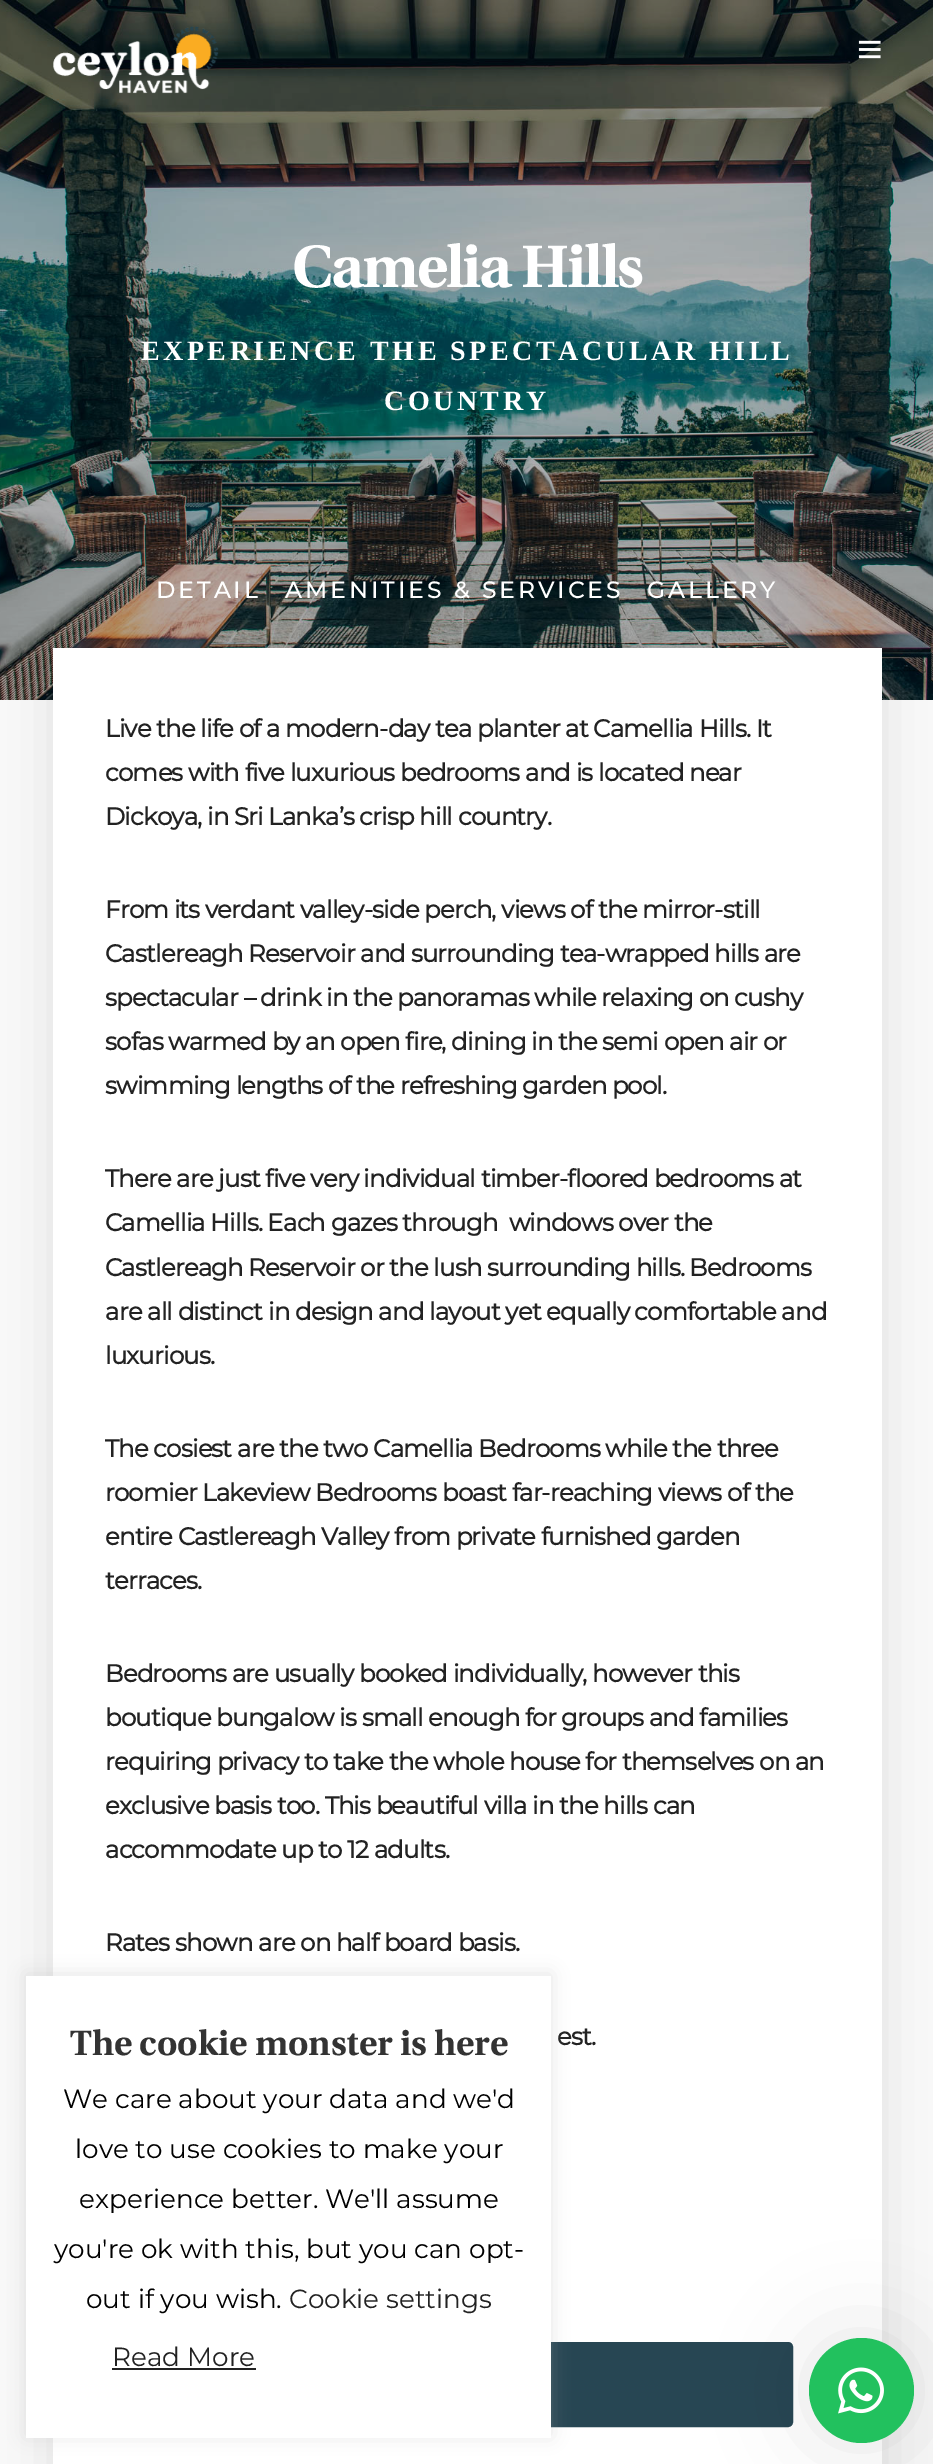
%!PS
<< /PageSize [933 2464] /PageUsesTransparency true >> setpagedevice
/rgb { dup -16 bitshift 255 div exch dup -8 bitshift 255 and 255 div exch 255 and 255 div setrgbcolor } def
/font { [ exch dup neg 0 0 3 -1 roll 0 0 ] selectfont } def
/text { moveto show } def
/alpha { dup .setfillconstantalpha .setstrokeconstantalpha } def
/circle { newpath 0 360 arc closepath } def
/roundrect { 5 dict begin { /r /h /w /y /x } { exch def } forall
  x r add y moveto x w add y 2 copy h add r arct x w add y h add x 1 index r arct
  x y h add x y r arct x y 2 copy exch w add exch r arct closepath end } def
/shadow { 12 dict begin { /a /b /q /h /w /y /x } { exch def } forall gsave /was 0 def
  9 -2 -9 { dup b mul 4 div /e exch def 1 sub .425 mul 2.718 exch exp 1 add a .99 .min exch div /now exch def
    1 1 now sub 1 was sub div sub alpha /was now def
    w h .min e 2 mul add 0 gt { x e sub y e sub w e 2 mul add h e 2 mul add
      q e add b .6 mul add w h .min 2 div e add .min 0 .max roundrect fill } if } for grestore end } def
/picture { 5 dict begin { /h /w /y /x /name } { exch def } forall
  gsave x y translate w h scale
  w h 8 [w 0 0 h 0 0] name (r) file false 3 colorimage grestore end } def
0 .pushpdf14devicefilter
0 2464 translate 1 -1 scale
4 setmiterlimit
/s1 { /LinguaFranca-Bold 35 font 16#333333 rgb } def
/s2 { /Montserrat-Thin 26.25 font 16#000000 rgb } def
/s3 { /Montserrat-Thin 26.25 font 16#222222 rgb } def
16#F9F9F9 rgb
0 0 933 2464 rectfill
(pic3.raw) 0 0 933 700 picture
(pic1.raw) 53 26 166 68 picture
(pic2.raw) 858 40 23 19 picture
/LinguaFranca-Bold 59.5 font
16#FFFFFF rgb
292 287 moveto -1.75 0 (Camelia Hills) ashow
/LiberationSerif-Bold 28 font
141 360 moveto 3.5 0 (EXPERIENCE THE SPECTACULAR HILL) ashow
384 410 moveto 3.5 0 (COUNTRY) ashow
/Montserrat-Bold 22.75 font
156 598 moveto 3.5 0 (DETAIL) ashow
285 598 moveto 3.5 0 (AMENITIES & SERVICES) ashow
647 598 moveto 3.5 0 (GALLERY) ashow
16#010101 rgb
53 683 829 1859 0 26 0.1 shadow
16#FFFFFF rgb
53 648 829 1816 rectfill
/Montserrat-Bold 24.5 font
16#222222 rgb
105 737 moveto -0.88 0 (Live the life of a modern-day tea planter at Camellia Hills. It) ashow
105 781 moveto -0.88 0 (comes with five luxurious bedrooms and is located near) ashow
105 825 moveto -0.88 0 (Dickoya, in Sri Lanka’s crisp hill country.) ashow
105 918 moveto -0.88 0 (From its verdant valley-side perch, views of the mirror-still) ashow
105 962 moveto -0.88 0 (Castlereagh Reservoir and surrounding tea-wrapped hills are) ashow
105 1006 moveto -0.88 0 (spectacular – drink in the panoramas while relaxing on cushy) ashow
105 1050 moveto -0.88 0 (sofas warmed by an open fire, dining in the semi open air or) ashow
105 1094 moveto -0.88 0 (swimming lengths of the refreshing garden pool.) ashow
105 1187 moveto -0.88 0 (There are just five very individual timber-floored bedrooms at) ashow
105 1231 moveto -0.88 0 (Camellia Hills. Each gazes through  windows over the) ashow
105 1276 moveto -0.88 0 (Castlereagh Reservoir or the lush surrounding hills. Bedrooms) ashow
105 1320 moveto -0.88 0 (are all distinct in design and layout yet equally comfortable and) ashow
105 1364 moveto -0.88 0 (luxurious.) ashow
105 1457 moveto -0.88 0 (The cosiest are the two Camellia Bedrooms while the three) ashow
105 1501 moveto -0.88 0 (roomier Lakeview Bedrooms boast far-reaching views of the) ashow
105 1545 moveto -0.88 0 (entire Castlereagh Valley from private furnished garden) ashow
105 1589 moveto -0.88 0 (terraces.) ashow
105 1682 moveto -0.88 0 (Bedrooms are usually booked individually, however this) ashow
105 1726 moveto -0.88 0 (boutique bungalow is small enough for groups and families) ashow
105 1770 moveto -0.88 0 (requiring privacy to take the whole house for themselves on an) ashow
105 1814 moveto -0.88 0 (exclusive basis too. This beautiful villa in the hills can) ashow
105 1858 moveto -0.88 0 (accommodate up to 12 adults.) ashow
105 1951 moveto -0.88 0 (Rates shown are on half board basis.) ashow
557 2045 moveto -0.88 0 (est.) ashow
16#274653 rgb
144 2344 647 81 3 roundrect gsave fill grestore
4 setlinewidth
stroke
16#ACABAB rgb
26 1974 525 462 0 9 0.3 shadow
16#FFFFFF rgb
26 1976 525 462 rectfill
s1
(The cookie monster is here) 70 2055 text
s2
(We care about your data and we'd) 63 2108 text
(love to use cookies to make your) 75 2158 text
(experience better. We'll assume) 79 2208 text
(you're ok with this, but you can opt-) 54 2258 text
(out if you wish.) 86 2308 text
s3
(Cookie settings) 289 2308 text
(Read More) 112 2366 text
112 2368 144 2 rectfill
16#000000 rgb
809 2338 105 105 52.5 44 0.1 shadow
16#22C15E rgb
861.5 2390.5 52.5 circle fill
(pic4.raw) 838 2367 46 47 picture
.poppdf14devicefilter showpage
